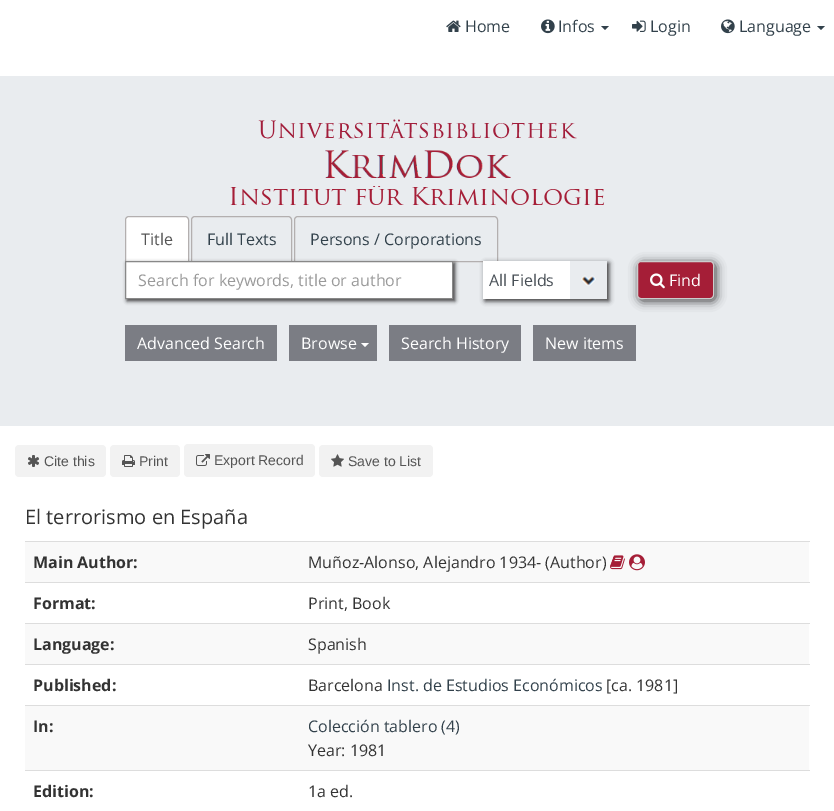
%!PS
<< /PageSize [834 811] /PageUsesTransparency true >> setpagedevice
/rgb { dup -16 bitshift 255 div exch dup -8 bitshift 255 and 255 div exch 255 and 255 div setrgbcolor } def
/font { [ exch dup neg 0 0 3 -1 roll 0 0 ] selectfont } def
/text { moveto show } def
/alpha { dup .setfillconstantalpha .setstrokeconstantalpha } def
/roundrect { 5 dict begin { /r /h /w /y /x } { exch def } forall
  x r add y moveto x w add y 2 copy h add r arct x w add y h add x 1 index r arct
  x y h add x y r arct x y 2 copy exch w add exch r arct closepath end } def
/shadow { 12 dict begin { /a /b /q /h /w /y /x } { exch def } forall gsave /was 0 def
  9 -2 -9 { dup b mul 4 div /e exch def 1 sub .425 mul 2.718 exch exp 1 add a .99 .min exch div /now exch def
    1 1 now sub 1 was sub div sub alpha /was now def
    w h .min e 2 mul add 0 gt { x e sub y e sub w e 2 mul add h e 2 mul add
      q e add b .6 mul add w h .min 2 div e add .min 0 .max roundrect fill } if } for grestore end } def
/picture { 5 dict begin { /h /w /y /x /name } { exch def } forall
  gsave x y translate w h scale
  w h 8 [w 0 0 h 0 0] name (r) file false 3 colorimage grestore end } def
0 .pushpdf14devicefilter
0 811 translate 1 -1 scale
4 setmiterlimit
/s1 { /OpenSans-Regular 16 font 16#32414B rgb } def
/s2 { /OpenSans-Regular 16 font 16#555555 rgb } def
/s3 { /OpenSans-Regular 16 font 16#999999 rgb } def
/s4 { /OpenSans-Regular 16 font 16#495057 rgb } def
/s5 { /OpenSans-Regular 16 font 16#FFFFFF rgb } def
/s6 { /LiberationSans-Regular 14 font 16#555555 rgb } def
/s7 { /OpenSans-Regular 20 font 16#333333 rgb } def
/s8 { /OpenSans-Bold 16 font 16#333333 rgb } def
/s9 { /OpenSans-Regular 16 font 16#333333 rgb } def
16#FFFFFF rgb
0 0 834 811 rectfill
(pic1.raw) 446 20 15 12 picture
s1
(Home) 465 32 text
(pic2.raw) 541 19 14 15 picture
(Infos) 558 32 text
601 26 moveto 609 26 lineto 605 30 lineto closepath fill
(pic3.raw) 632 20 14 12 picture
(Login) 650 32 text
(pic4.raw) 721 19 14 15 picture
(Language) 739 32 text
817 26 moveto 825 26 lineto 821 30 lineto closepath fill
16#E9ECEF rgb
0 76 834 350 rectfill
(pic5.raw) 258 119 319 20 picture
(pic6.raw) 325 150 186 28 picture
(pic7.raw) 230 186 375 19 picture
16#FFFFFF rgb
129 216.5 moveto 185 216.5 lineto 187 216.5 188.5 218 188.5 220 curveto 188.5 261.5 lineto 125.5 261.5 lineto 125.5 220 lineto 125.5 218 127 216.5 129 216.5 curveto closepath gsave fill grestore
16#B3AFAF rgb
stroke
s2
(Title) 141 245 text
16#B3AFAF rgb
195 216.5 moveto 288 216.5 lineto 290 216.5 291.5 218 291.5 220 curveto 291.5 261.5 lineto 191.5 261.5 lineto 191.5 220 lineto 191.5 218 193 216.5 195 216.5 curveto closepath stroke
s1
(Full Texts) 207 245 text
16#B3AFAF rgb
298 216.5 moveto 494 216.5 lineto 496 216.5 497.5 218 497.5 220 curveto 497.5 261.5 lineto 294.5 261.5 lineto 294.5 220 lineto 294.5 218 296 216.5 298 216.5 curveto closepath stroke
s1
(Persons / Corporations) 310 245 text
16#323232 rgb
127 263 328 38 0 2 1 shadow
16#FFFFFF rgb
125.5 261.5 moveto 452.5 261.5 lineto 452.5 298.5 lineto 125.5 298.5 lineto closepath gsave fill grestore
16#888888 rgb
stroke
s3
(Search for keywords, title or author) 138 286 text
16#323232 rgb
485 263 124 38 0 2.5 1 shadow
16#FFFFFF rgb
483 261 87 38 rectfill
(pic8.raw) 570 261 37 38 picture
s4
(All Fields) 489 286 text
16#323232 rgb
639 263 77 38 4 5 1 shadow
16#A51E37 rgb
637.5 261.5 76 37 3.5 roundrect gsave fill grestore
16#CCCCCC rgb
stroke
(pic9.raw) 650 273 15 16 picture
s5
(Find) 669 286 text
16#7B7D84 rgb
125 325 152 36 rectfill
s5
(Advanced Search) 137 349 text
16#7B7D84 rgb
289 325 88 36 rectfill
s5
(Browse) 301 349 text
361 343 moveto 369 343 lineto 365 347 lineto closepath fill
16#7B7D84 rgb
389 325 132 36 rectfill
s5
(Search History) 401 349 text
16#7B7D84 rgb
533 325 103 36 rectfill
s5
(New items) 545 349 text
16#F2F2F2 rgb
15 445 91 32 4 roundrect fill
(pic10.raw) 28 455 11 12 picture
s6
(Cite this) 44 466 text
16#F2F2F2 rgb
110 445 70 32 4 roundrect fill
(pic11.raw) 122 455 13 12 picture
s6
(Print) 139 466 text
16#F2F2F2 rgb
184 444 131 33 4 roundrect fill
(pic12.raw) 196 454 14 12 picture
s6
(Export Record) 214 465 text
16#F2F2F2 rgb
319 445 114 32 4 roundrect fill
(pic13.raw) 331 454 13 13 picture
s6
(Save to List) 348 466 text
s7
(El terrorismo en España) 25 524 text
16#F9F9F9 rgb
25 542 784 40 rectfill
s8
(Main Author:) 33 568 text
16#DDDDDD rgb
25 541 785 1 rectfill
s9
(Muñoz-Alonso, Alejandro 1934- \(Author\)) 308 568 text
(pic14.raw) 610 555 15 15 picture
(pic15.raw) 629 554 16 17 picture
s8
(Format:) 33 609 text
16#DDDDDD rgb
25 582 785 1 rectfill
s9
(Print, Book) 308 609 text
16#F9F9F9 rgb
25 624 784 40 rectfill
s8
(Language:) 33 650 text
16#DDDDDD rgb
25 623 785 1 rectfill
s9
(Spanish) 308 650 text
s8
(Published:) 33 691 text
16#DDDDDD rgb
25 664 785 1 rectfill
s9
(Barcelona) 308 691 text
s1
(Inst. de Estudios Económicos) 387 691 text
s9
([ca. 1981]) 606 691 text
16#F9F9F9 rgb
25 706 784 64 rectfill
s8
(In:) 33 732 text
16#DDDDDD rgb
25 705 785 1 rectfill
s1
(Colección tablero \(4\)) 308 732 text
s9
(Year: 1981) 308 756 text
s8
(Edition:) 33 797 text
16#DDDDDD rgb
25 770 785 1 rectfill
s9
(1a ed.) 308 797 text
.poppdf14devicefilter showpage
